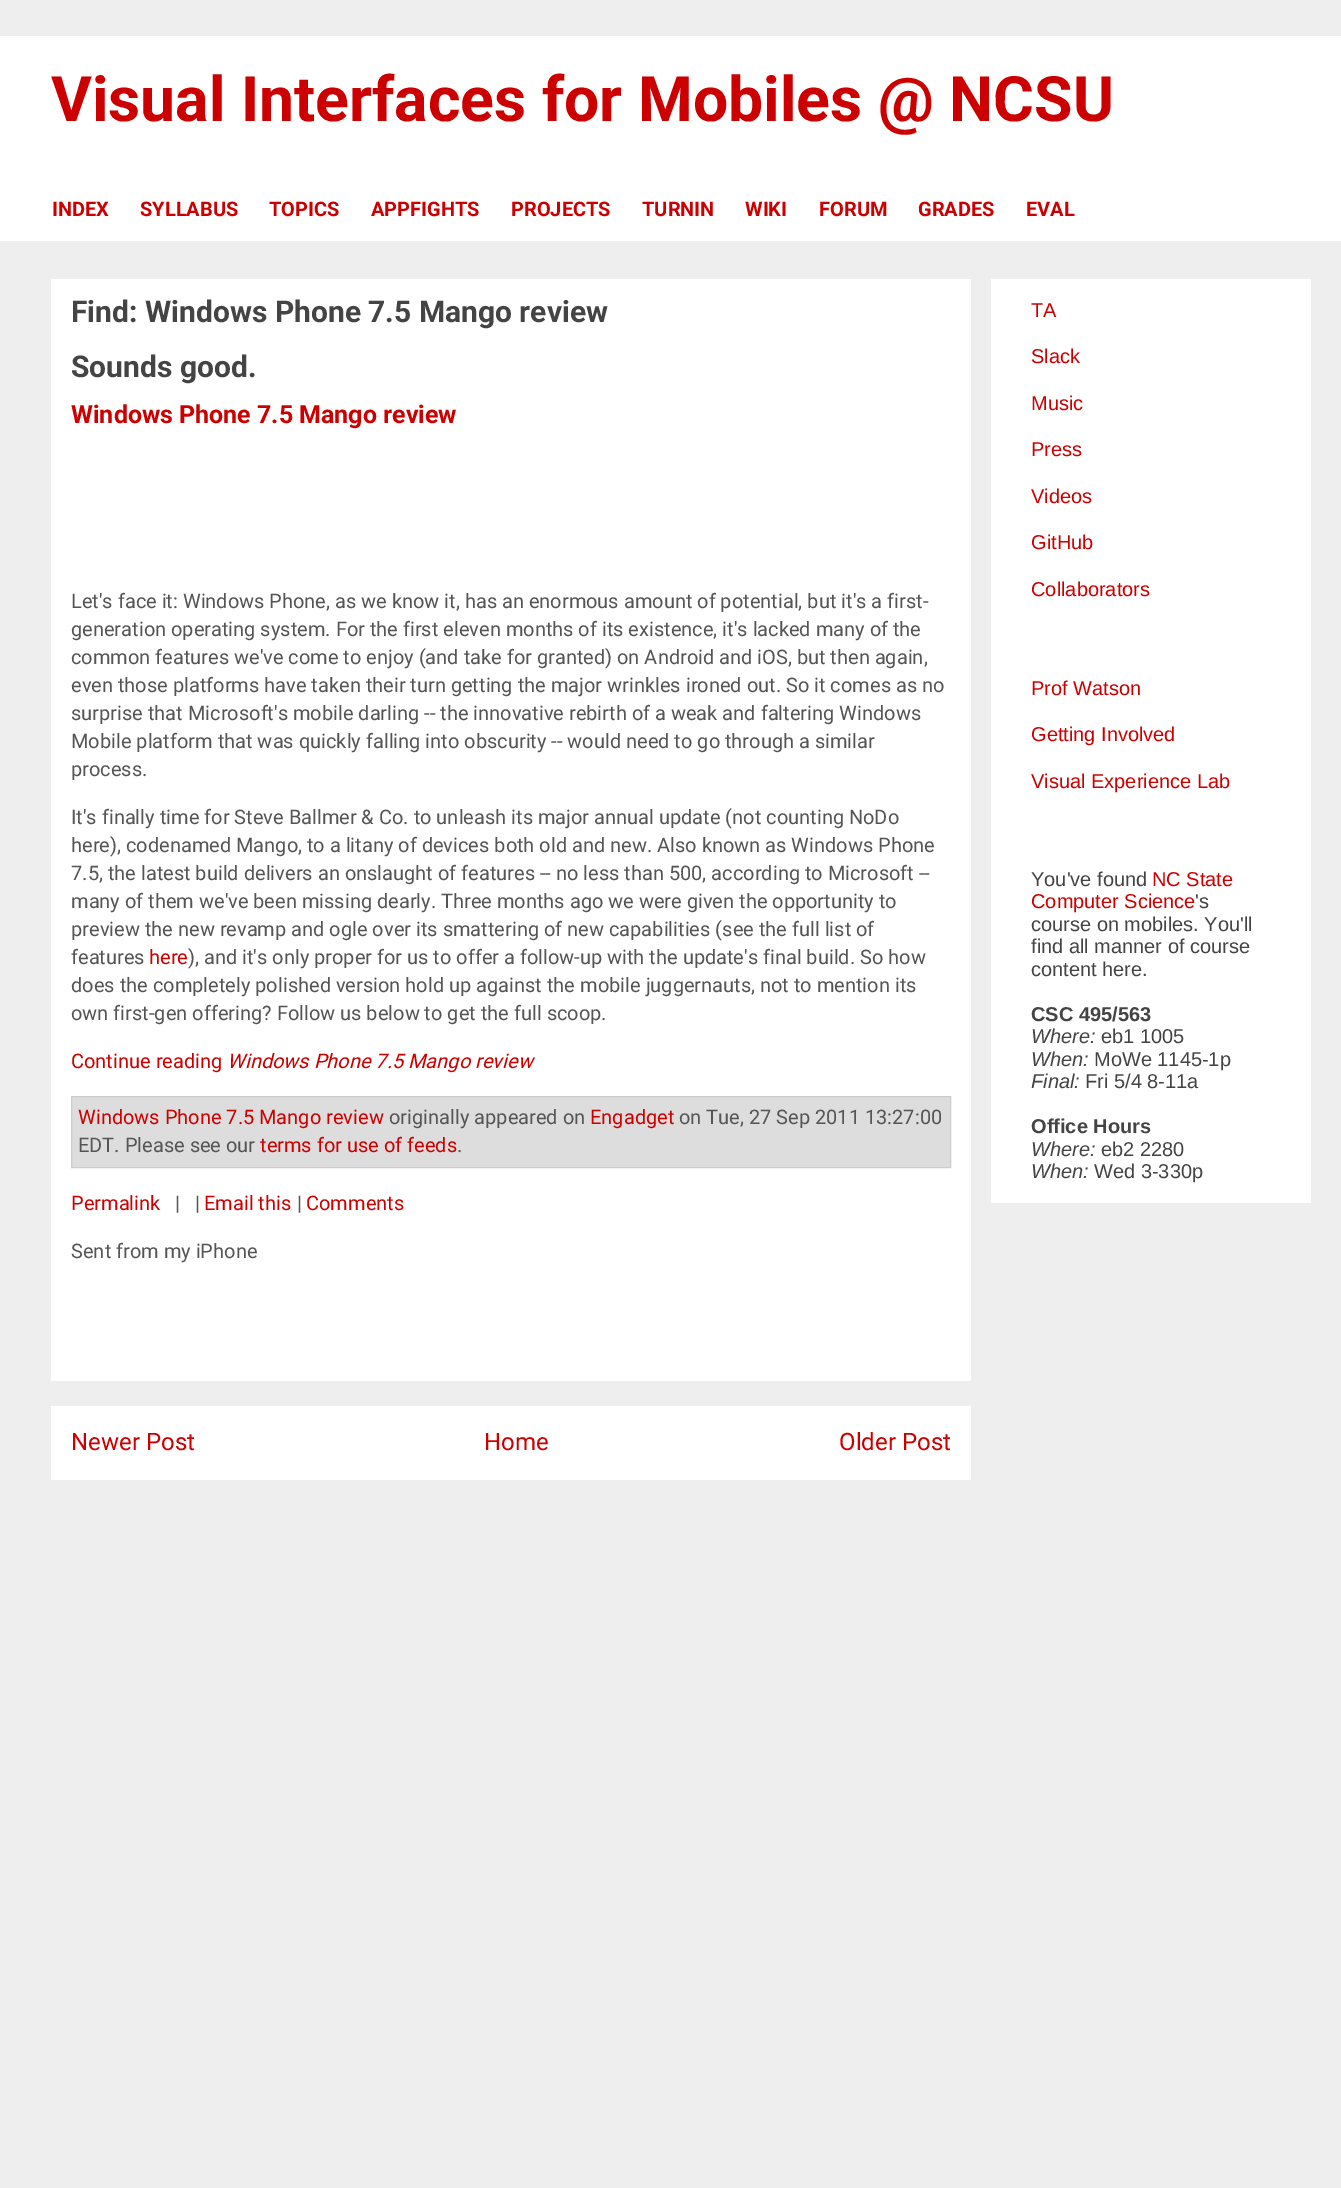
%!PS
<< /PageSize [1341 2188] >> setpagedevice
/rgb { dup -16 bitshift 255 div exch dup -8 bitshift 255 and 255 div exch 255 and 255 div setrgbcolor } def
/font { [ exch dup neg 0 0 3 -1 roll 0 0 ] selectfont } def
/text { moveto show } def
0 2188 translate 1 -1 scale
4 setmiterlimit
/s1 { /Roboto-Bold 62.5 font 16#CC0000 rgb } def
/s2 { /Roboto-Bold 20 font 16#CC0000 rgb } def
/s3 { /Roboto-Bold 30 font 16#444444 rgb } def
/s4 { /Roboto-Bold 25 font 16#CC0000 rgb } def
/s5 { /Roboto-Regular 20 font 16#555555 rgb } def
/s6 { /Roboto-Regular 20 font 16#CC0000 rgb } def
/s7 { /Roboto-Italic 20 font 16#CC0000 rgb } def
/s8 { /Roboto-Regular 24 font 16#CC0000 rgb } def
/s9 { /LiberationSans-Regular 20 font 16#CC0000 rgb } def
/s10 { /LiberationSans-Regular 20 font 16#444444 rgb } def
/s11 { /LiberationSans-Bold 20 font 16#444444 rgb } def
/s12 { /LiberationSans-Italic 20 font 16#444444 rgb } def
16#EEEEEE rgb
0 0 1341 2188 rectfill
16#FFFFFF rgb
0 36 1341 205 rectfill
s1
(Visual Interfaces for Mobiles @ NCSU) 51 121 text
s2
(INDEX) 52 216 text
(SYLLABUS) 140 216 text
(TOPICS) 269 216 text
(APPFIGHTS) 371 216 text
(PROJECTS) 511 216 text
(TURNIN) 642 216 text
(WIKI) 745 216 text
(FORUM) 819 216 text
(GRADES) 918 216 text
(EVAL) 1026 216 text
16#FFFFFF rgb
51 279 920 1102 rectfill
s3
(Find: Windows Phone 7.5 Mango review) 71 322 text
(Sounds good.) 71 377 text
s4
(Windows Phone 7.5 Mango review) 71 423 text
s5
(Let's face it: Windows Phone, as we know it, has an enormous amount of potential, but it's a first-) 71 608 text
(generation operating system. For the first eleven months of its existence, it's lacked many of the) 71 636 text
(common features we've come to enjoy \(and take for granted\) on Android and iOS, but then again,) 71 664 text
(even those platforms have taken their turn getting the major wrinkles ironed out. So it comes as no) 71 692 text
(surprise that Microsoft's mobile darling -- the innovative rebirth of a weak and faltering Windows) 71 720 text
(Mobile platform that was quickly falling into obscurity -- would need to go through a similar) 71 748 text
(process.) 71 776 text
(It's finally time for Steve Ballmer & Co. to unleash its major annual update \(not counting NoDo) 71 824 text
(here\), codenamed Mango, to a litany of devices both old and new. Also known as Windows Phone) 71 852 text
(7.5, the latest build delivers an onslaught of features -- no less than 500, according to Microsoft --) 71 880 text
(many of them we've been missing dearly. Three months ago we were given the opportunity to) 71 908 text
(preview the new revamp and ogle over its smattering of new capabilities \(see the full list of) 71 936 text
(features) 71 964 text
s6
(here) 149 964 text
s5
(\), and it's only proper for us to offer a follow-up with the update's final build. So how) 188 964 text
(does the completely polished version hold up against the mobile juggernauts, not to mention its) 71 992 text
(own first-gen offering? Follow us below to get the full scoop.) 71 1020 text
s6
(Continue reading) 71 1068 text
s7
(Windows Phone 7.5 Mango review) 227 1068 text
16#DDDDDD rgb
71.5 1096.5 moveto 950.5 1096.5 lineto 950.5 1167.5 lineto 71.5 1167.5 lineto closepath gsave fill grestore
16#CCCCCC rgb
stroke
s6
(Windows Phone 7.5 Mango review) 78 1124 text
s5
(originally appeared on) 389 1124 text
s6
(Engadget) 590 1124 text
s5
(on Tue, 27 Sep 2011 13:27:00) 679 1124 text
(EDT. Please see our) 78 1152 text
s6
(terms for use of feeds) 260 1152 text
s5
(.) 457 1152 text
s6
(Permalink) 71 1210 text
s5
(|   |) 175 1210 text
s6
(Email this) 204 1210 text
s5
(|) 297 1210 text
s6
(Comments) 306 1210 text
s5
(Sent from my iPhone) 71 1258 text
16#FFFFFF rgb
51 1406 920 74 rectfill
s8
(Newer Post) 71 1450 text
(Home) 484 1450 text
(Older Post) 839 1450 text
16#FFFFFF rgb
991 279 320 924 rectfill
s9
(TA) 1031 317 text
(Slack) 1031 363 text
(Music) 1031 410 text
(Press) 1031 456 text
(Videos) 1031 503 text
(GitHub) 1031 549 text
(Collaborators) 1031 596 text
(Prof Watson) 1031 695 text
(Getting Involved) 1031 741 text
(Visual Experience Lab) 1031 788 text
s10
(You've found) 1031 886 text
s9
(NC State) 1152 886 text
(Computer Science) 1031 908 text
s10
('s) 1195 908 text
(course on mobiles. You'll) 1031 931 text
(find all manner of course) 1031 953 text
(content here.) 1031 976 text
s11
(CSC 495/563) 1031 1021 text
s12
(Where:) 1031 1043 text
s10
(eb1 1005) 1101 1043 text
s12
(When:) 1031 1066 text
s10
(MoWe 1145-1p) 1094 1066 text
s12
(Final:) 1031 1088 text
s10
(Fri 5/4 8-11a) 1085 1088 text
s11
(Office Hours) 1031 1133 text
s12
(Where:) 1031 1156 text
s10
(eb2 2280) 1101 1156 text
s12
(When:) 1031 1178 text
s10
(Wed 3-330p) 1094 1178 text
showpage
